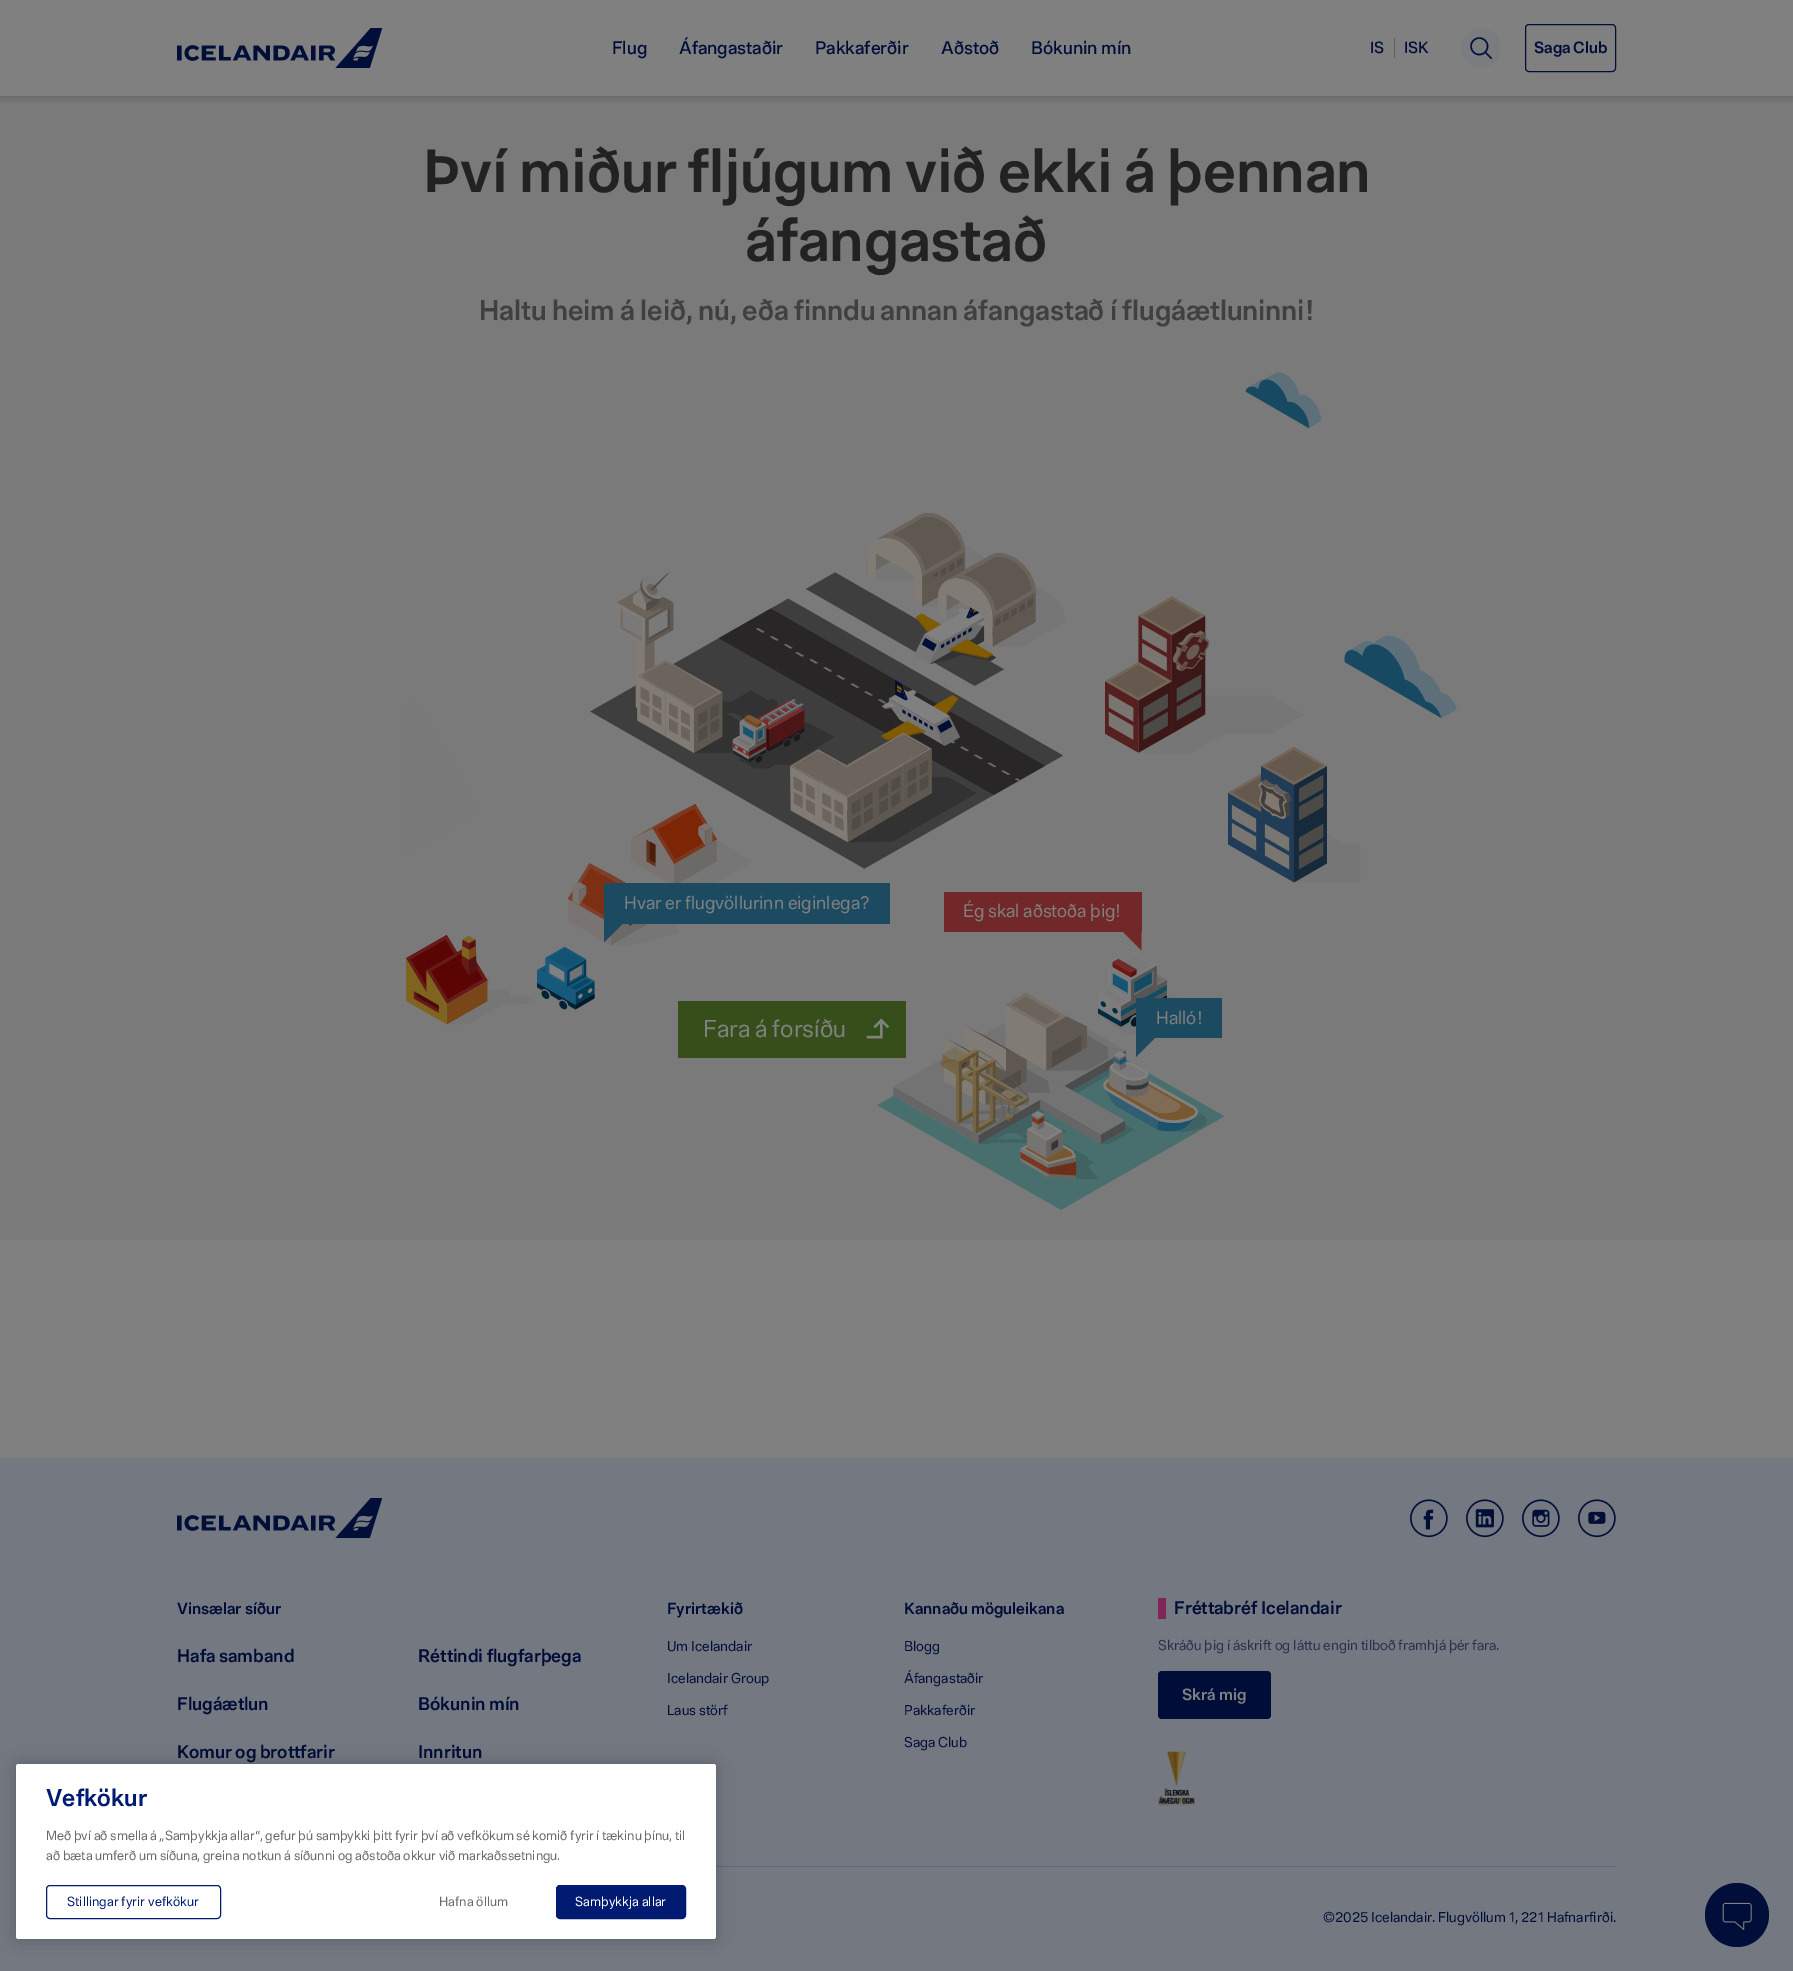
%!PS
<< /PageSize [1793 1971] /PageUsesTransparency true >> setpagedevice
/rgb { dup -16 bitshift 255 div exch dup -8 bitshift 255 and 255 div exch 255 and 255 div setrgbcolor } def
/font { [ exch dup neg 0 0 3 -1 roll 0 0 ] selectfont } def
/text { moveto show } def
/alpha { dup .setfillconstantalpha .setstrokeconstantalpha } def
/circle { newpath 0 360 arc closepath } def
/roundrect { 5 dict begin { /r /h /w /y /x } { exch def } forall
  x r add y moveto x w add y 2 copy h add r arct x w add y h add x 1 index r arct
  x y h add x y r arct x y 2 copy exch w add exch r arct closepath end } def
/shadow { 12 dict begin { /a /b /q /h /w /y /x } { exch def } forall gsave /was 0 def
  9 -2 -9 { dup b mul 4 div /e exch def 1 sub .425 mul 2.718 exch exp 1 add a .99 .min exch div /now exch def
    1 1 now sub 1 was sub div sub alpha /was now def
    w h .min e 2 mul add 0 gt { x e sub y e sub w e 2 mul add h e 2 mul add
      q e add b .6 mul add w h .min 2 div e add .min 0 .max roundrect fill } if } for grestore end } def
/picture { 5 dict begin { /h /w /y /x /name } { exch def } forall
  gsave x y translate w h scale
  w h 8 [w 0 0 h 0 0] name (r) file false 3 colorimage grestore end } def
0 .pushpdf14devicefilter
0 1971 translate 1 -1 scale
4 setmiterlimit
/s1 { /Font-Medium 18 font 16#000D38 rgb } def
/s2 { /Font-Medium 16 font 16#000D38 rgb } def
/s3 { /Font-SemiBold 16 font 16#000D38 rgb } def
/s4 { /Font-SemiBold 60 font 16#222222 rgb } def
/s5 { /Font-SemiBold 28 font 16#404040 rgb } def
/s6 { /Font-Regular 18 font 16#808080 rgb } def
/s7 { /Font-Regular 24 font 16#808080 rgb } def
/s8 { /Font-SemiBold 18 font 16#000D38 rgb } def
/s9 { /Font-Regular 14 font 16#000D38 rgb } def
/s10 { /Font-Regular 14 font 16#27304F rgb } def
/s11 { /Font-SemiBold 16 font 16#808080 rgb } def
/s12 { /Font-SemiBold 24 font 16#001B71 rgb } def
/s13 { /Font-Regular 13 font 16#696969 rgb } def
16#808080 rgb
0 0 1793 1971 rectfill
16#7A7A7A rgb
0 96 1793 1144 rectfill
gsave
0 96 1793 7 rectclip
16#000000 rgb
0 1 1793 96 0 5 0.2 shadow
grestore
(pic1.raw) 177 28 205 40 picture
s1
(Flug) 612 54 text
(Áfangastaðir) 679 54 text
(Pakkaferðir) 815 54 text
(Aðstoð) 941 54 text
(Bókunin mín) 1031 54 text
s2
(IS) 1370 53 text
16#5A5E6A rgb
1394 38 1 20 rectfill
s2
(ISK) 1404 53 text
16#7A7C80 rgb
1481 48 20 circle fill
(pic2.raw) 1470 37 23 23 picture
16#000E39 rgb
1525.5 24.5 90 47 3.5 roundrect stroke
s3
(Saga Club) 1534 53 text
s4
(Því miður fljúgum við ekki á þennan) 423 192 text
(áfangastað) 745 261 text
s5
(Haltu heim á leið, nú, eða finndu annan áfangastað í flugáætluninni!) 479 320 text
(pic3.raw) 406 372 1051 838 picture
16#1C4A61 rgb
604 883 286 41 rectfill
s6
(Hvar er flugvöllurinn eiginlega?) 624 909 text
16#1C4A61 rgb
604 922.5 moveto 624 922.5 lineto 604 942.5 lineto closepath fill
16#722728 rgb
944 892 198 40 rectfill
s6
(Ég skal aðstoða þig!) 963 917 text
16#722728 rgb
1141.5 930.5 moveto 1141.5 950.5 lineto 1121.5 930.5 lineto closepath fill
16#1C4A61 rgb
1136 998 86 40 rectfill
s6
(Halló!) 1156 1024 text
16#1C4A61 rgb
1136 1037 moveto 1156 1037 lineto 1136 1057 lineto closepath fill
16#354E1A rgb
678 1001 228 57 rectfill
s7
(Fara á forsíðu) 703 1037 text
(pic4.raw) 866 1018 24 21 picture
16#747880 rgb
0 1458 1793 513 rectfill
(pic5.raw) 177 1498 205 40 picture
(pic6.raw) 1410 1499 38 39 picture
(pic7.raw) 1466 1499 38 39 picture
(pic8.raw) 1522 1499 38 39 picture
(pic9.raw) 1578 1499 38 39 picture
s3
(Vinsælar síður) 177 1614 text
s8
(Hafa samband) 177 1662 text
(Réttindi flugfarþega) 418 1662 text
(Flugáætlun) 177 1710 text
(Bókunin mín) 418 1710 text
(Komur og brottfarir) 177 1758 text
(Innritun) 418 1758 text
s3
(Fyrirtækið) 667 1614 text
s9
(Um Icelandair) 667 1651 text
(Icelandair Group) 667 1683 text
(Laus störf) 667 1715 text
s3
(Kannaðu möguleikana) 904 1614 text
s9
(Blogg) 904 1651 text
(Áfangastaðir) 904 1683 text
(Pakkaferðir) 904 1715 text
(Saga Club) 904 1747 text
16#80245A rgb
1158 1598 8 21 rectfill
s8
(Fréttabréf Icelandair) 1174 1614 text
s10
(Skráðu þig í áskrift og láttu engin tilboð framhjá þér fara.) 1158 1650 text
16#000D38 rgb
1158 1671 113 48 4 roundrect fill
s11
(Skrá mig) 1182 1700 text
(pic10.raw) 1158 1751 37 55 picture
16#5B6980 rgb
716 1866 901 1 rectfill
s9
(©2025 Icelandair. Flugvöllum 1, 221 Hafnarfirði.) 1323 1922 text
16#000000 rgb
16 1764 700 175 2.5 9 0.2 shadow
16#FFFFFF rgb
16 1764 700 175 2.5 roundrect fill
s12
(Vefkökur) 46 1806 text
s13
(Með því að smella á „Samþykkja allar“, gefur þú samþykki þitt fyrir því að vefkökum sé komið fyrir í tækinu þínu, til) 46 1840 text
(að bæta umferð um síðuna, greina notkun á síðunni og aðstoða okkur við markaðssetningu.) 46 1860 text
16#001B71 rgb
46.5 1885.5 174 33 3.5 roundrect stroke
67 1906 moveto 0.1 0 (Stillingar fyrir vefkökur) ashow
16#696969 rgb
439 1906 moveto 0.1 0 (Hafna öllum) ashow
16#001B71 rgb
556.5 1885.5 129 33 3.5 roundrect gsave fill grestore
stroke
16#FFFFFF rgb
575 1906 moveto 0.1 0 (Samþykkja allar) ashow
16#000E39 rgb
1737 1915 32 circle fill
(pic11.raw) 1722 1902 30 28 picture
.poppdf14devicefilter showpage
